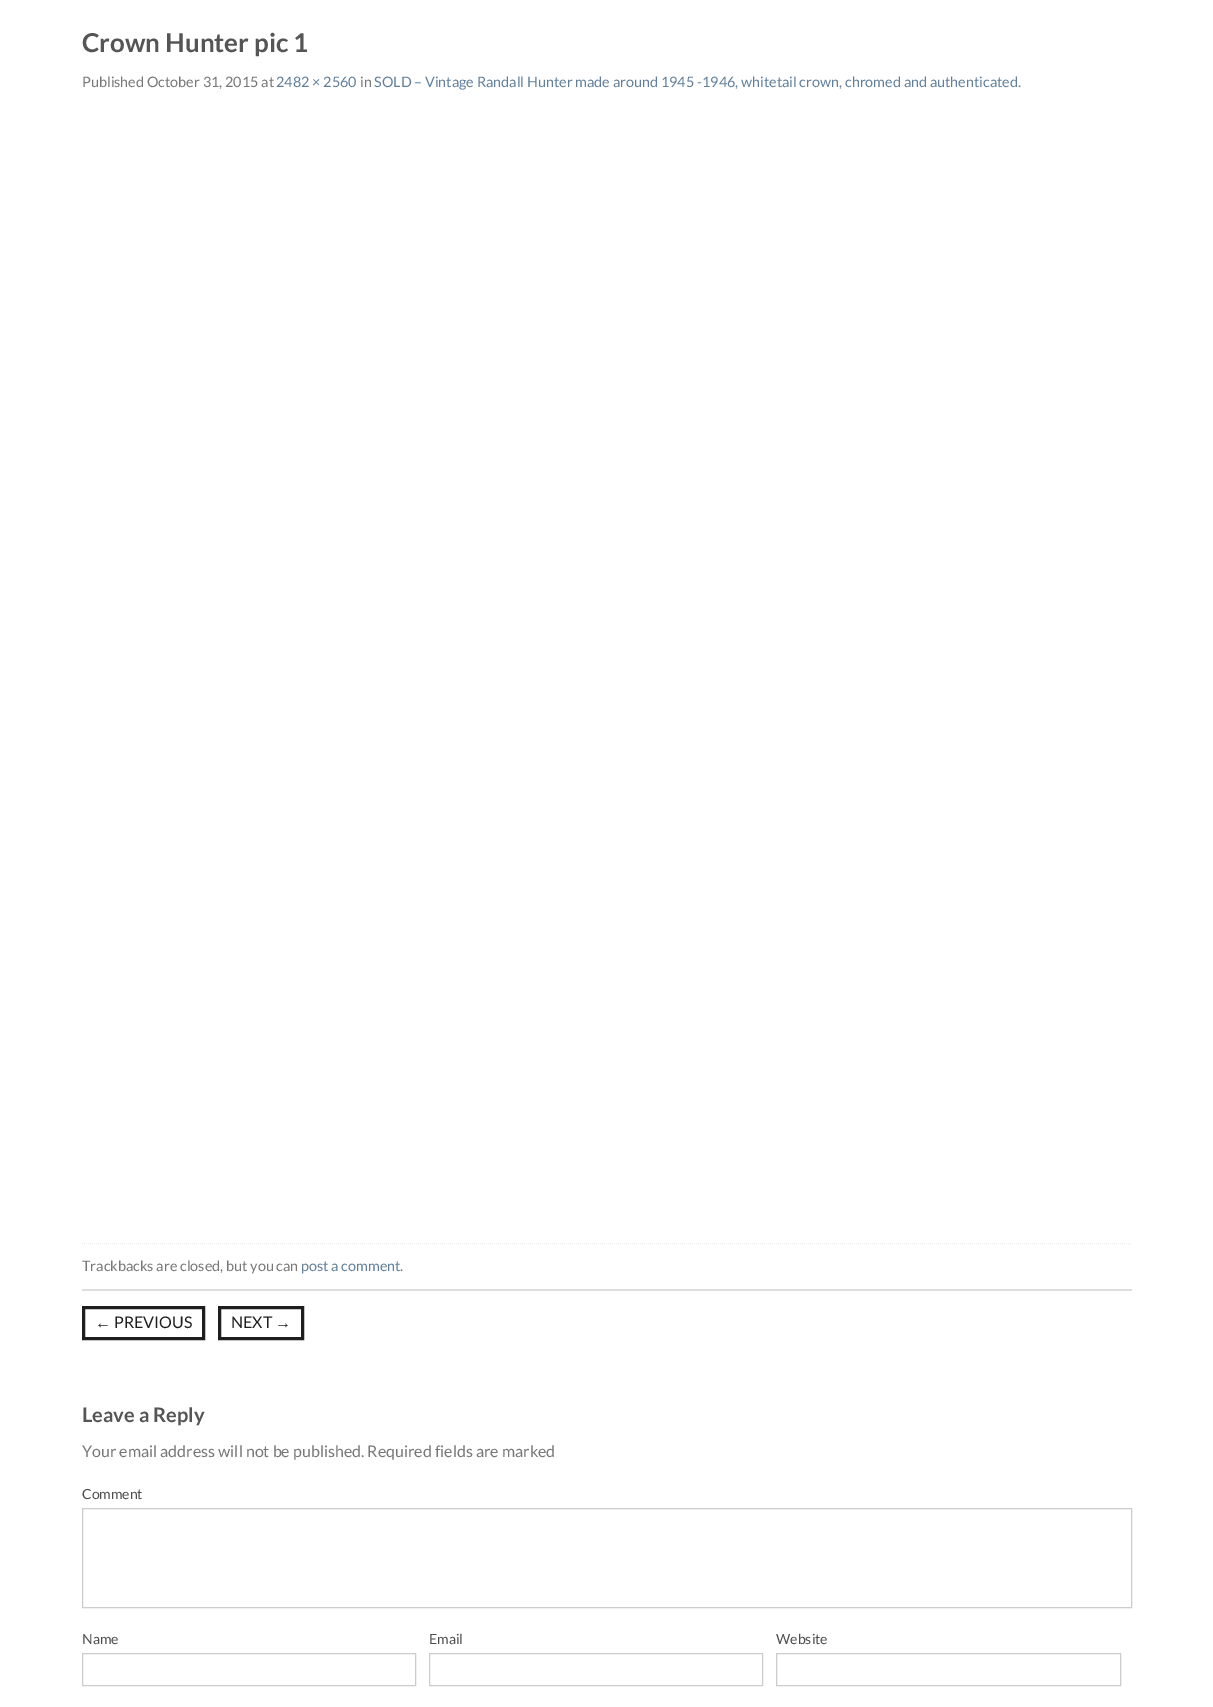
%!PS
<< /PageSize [1213 1707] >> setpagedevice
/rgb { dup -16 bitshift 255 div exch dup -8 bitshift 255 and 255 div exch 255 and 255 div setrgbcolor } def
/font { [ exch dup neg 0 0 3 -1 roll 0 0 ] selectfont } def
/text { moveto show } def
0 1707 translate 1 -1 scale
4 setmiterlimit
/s1 { /Lato-Bold 26 font 16#555555 rgb } def
/s2 { /Lato-Regular 14.4 font 16#777777 rgb } def
/s3 { /Lato-Regular 14.4 font 16#627F9A rgb } def
/s4 { /LiberationSans-Regular 16 font 16#1E1E1E rgb } def
/s5 { /Lato-Regular 16 font 16#1E1E1E rgb } def
/s6 { /Lato-Bold 20 font 16#555555 rgb } def
/s7 { /Lato-Regular 16 font 16#777777 rgb } def
/s8 { /Lato-Regular 14 font 16#4D4D4D rgb } def
16#FFFFFF rgb
0 0 1213 1707 rectfill
s1
(Crown Hunter pic 1) 82 52 text
s2
(Published October 31, 2015 at) 82 87 text
s3
(2482 × 2560) 276 87 text
s2
(in) 360 87 text
s3
(SOLD – Vintage Randall Hunter made around 1945 -1946, whitetail crown, chromed and authenticated.) 374 87 text
16#EEEEEE rgb
[1 1] 0 setdash
82 1243.5 moveto 1132 1243.5 lineto stroke
16#DDDDDD rgb
82 1289 1050 2 rectfill
s2
(Trackbacks are closed, but you can) 82 1271 text
s3
(post a comment) 301 1271 text
s2
(.) 400 1271 text
16#1E1E1E rgb
3 setlinewidth
[] 0 setdash
83.5 1307.5 120 31 rectstroke
s4
(←) 95 1328 text
s5
(PREVIOUS) 114 1328 text
219.5 1307.5 83 31 rectstroke
(NEXT) 231 1328 text
s4
(→) 275 1328 text
s6
(Leave a Reply) 82 1422 text
s7
(Your email address will not be published. Required fields are marked) 82 1457 text
s8
(Comment) 82 1499 text
16#CCCCCC rgb
1 setlinewidth
82.5 1508.5 1049 99 rectstroke
s8
(Name) 82 1644 text
16#CCCCCC rgb
82.5 1653.5 333 32 rectstroke
s8
(Email) 429 1644 text
16#CCCCCC rgb
429.5 1653.5 333 32 rectstroke
s8
(Website) 776 1644 text
16#CCCCCC rgb
776.5 1653.5 344 32 rectstroke
showpage
